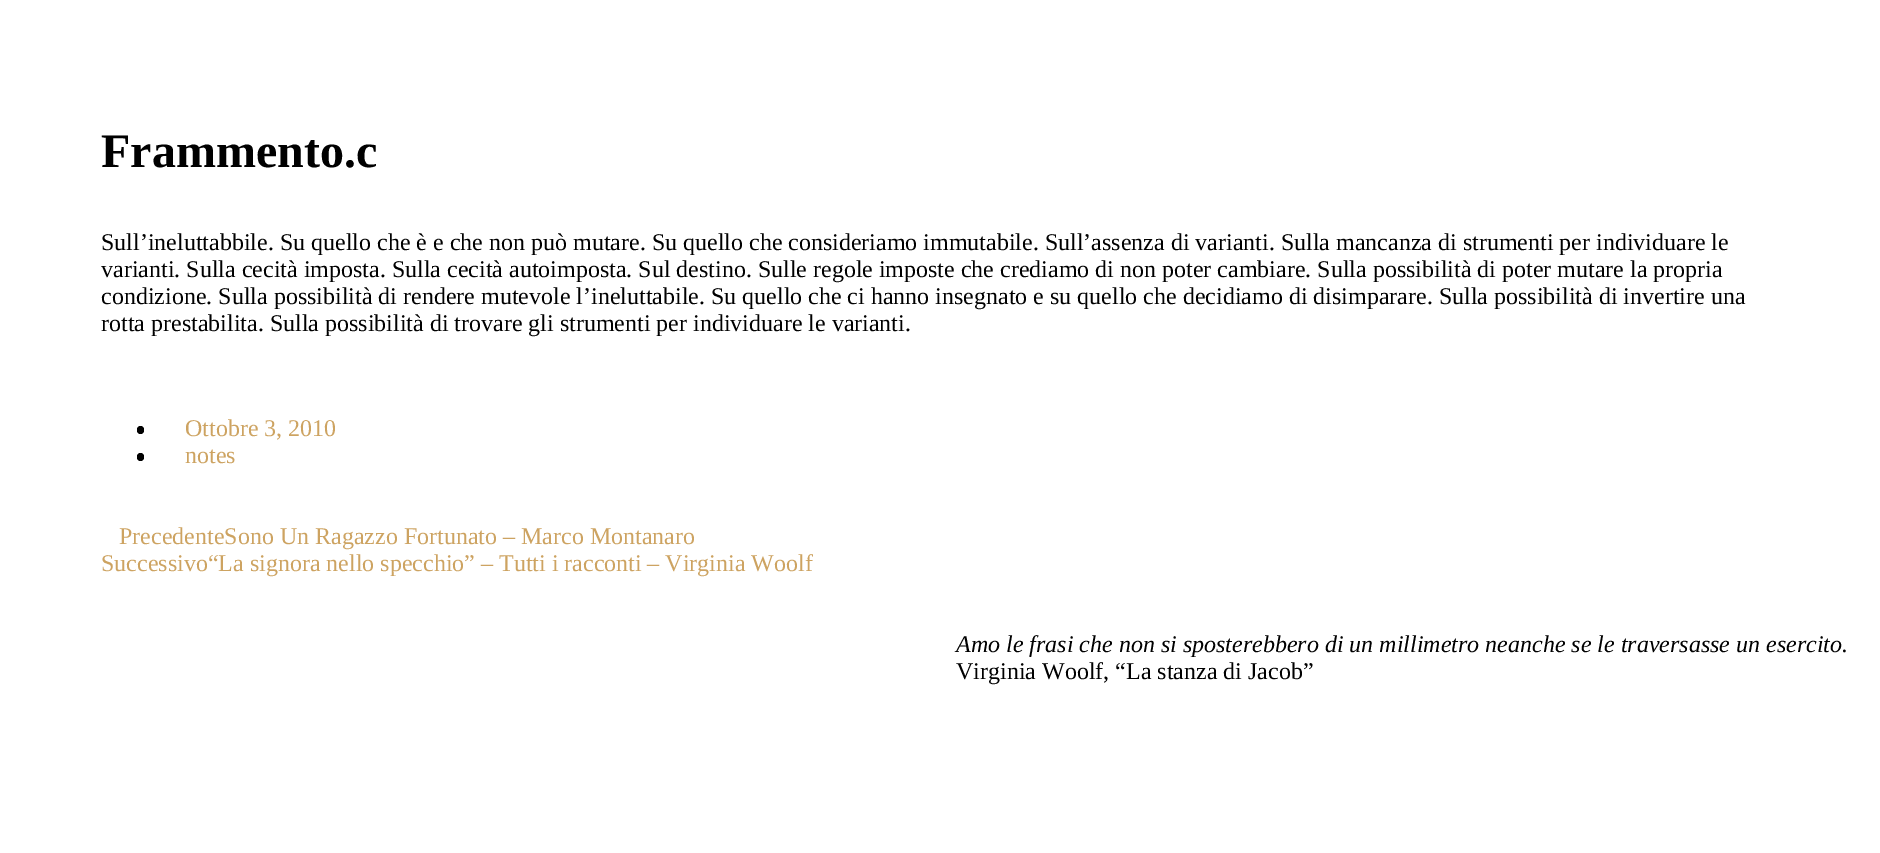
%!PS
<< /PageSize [1880 853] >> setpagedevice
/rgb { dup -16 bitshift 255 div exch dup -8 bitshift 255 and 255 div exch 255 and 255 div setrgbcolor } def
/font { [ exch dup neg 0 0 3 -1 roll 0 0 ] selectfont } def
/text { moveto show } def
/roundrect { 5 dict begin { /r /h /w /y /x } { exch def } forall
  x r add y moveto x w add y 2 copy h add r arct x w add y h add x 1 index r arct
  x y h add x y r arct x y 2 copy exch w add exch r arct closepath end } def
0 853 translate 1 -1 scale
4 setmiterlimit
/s1 { /LiberationSerif-Bold 48 font 16#000000 rgb } def
/s2 { /LiberationSerif-Regular 24 font 16#000000 rgb } def
/s3 { /LiberationSerif-Regular 24 font 16#CDA361 rgb } def
/s4 { /LiberationSerif-Italic 24 font 16#000000 rgb } def
16#FFFFFF rgb
0 0 1880 853 rectfill
s1
(Frammento.c) 101 167 text
s2
(Sull’ineluttabbile. Su quello che è e che non può mutare. Su quello che consideriamo immutabile. Sull’assenza di varianti. Sulla mancanza di strumenti per individuare le) 101 250 text
(varianti. Sulla cecità imposta. Sulla cecità autoimposta. Sul destino. Sulle regole imposte che crediamo di non poter cambiare. Sulla possibilità di poter mutare la propria) 101 277 text
(condizione. Sulla possibilità di rendere mutevole l’ineluttabile. Su quello che ci hanno insegnato e su quello che decidiamo di disimparare. Sulla possibilità di invertire una) 101 304 text
(rotta prestabilita. Sulla possibilità di trovare gli strumenti per individuare le varianti.) 101 331 text
137 426 7 8 3.5 roundrect fill
s3
(Ottobre 3, 2010) 185 436 text
16#000000 rgb
137 453 7 8 3.5 roundrect fill
s3
(notes) 185 463 text
(PrecedenteSono Un Ragazzo Fortunato – Marco Montanaro) 119 544 text
(Successivo“La signora nello specchio” – Tutti i racconti – Virginia Woolf) 101 571 text
s4
(Amo le frasi che non si sposterebbero di un millimetro neanche se le traversasse un esercito.) 956 652 text
s2
(Virginia Woolf, “La stanza di Jacob”) 956 679 text
showpage
